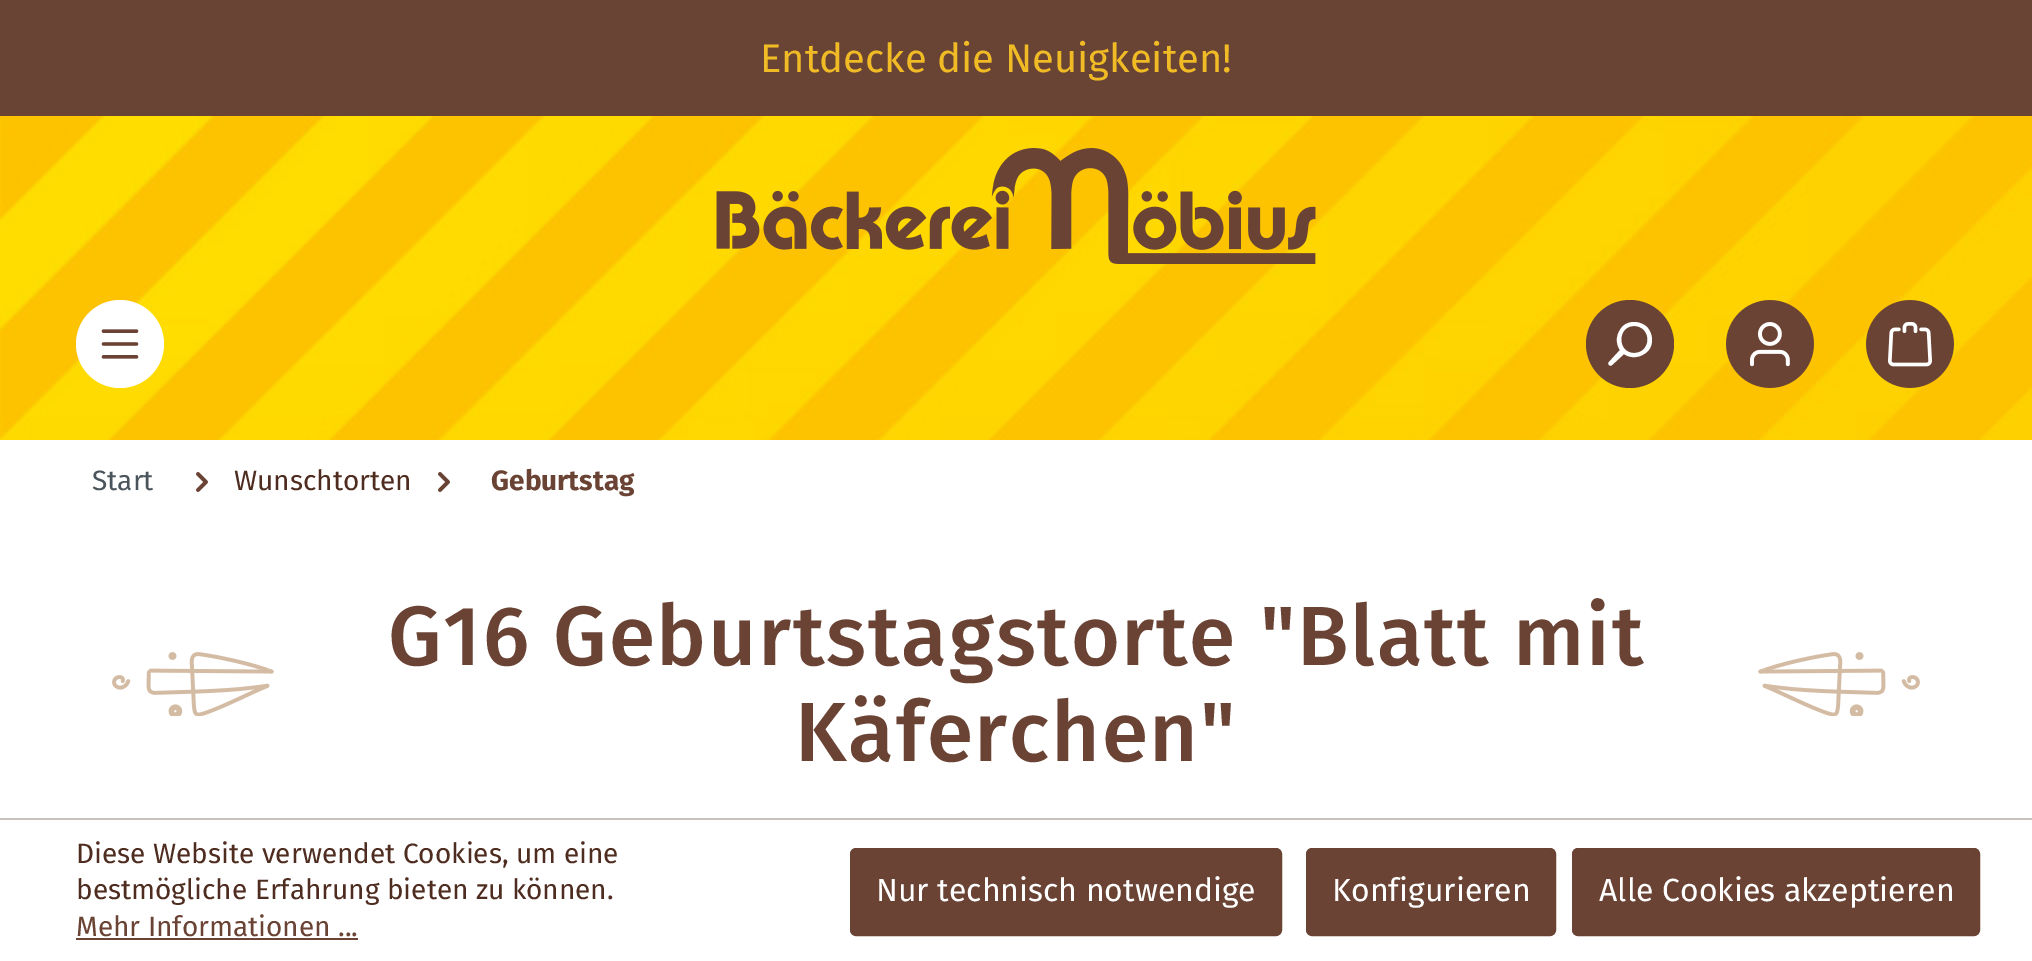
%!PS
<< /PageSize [2032 961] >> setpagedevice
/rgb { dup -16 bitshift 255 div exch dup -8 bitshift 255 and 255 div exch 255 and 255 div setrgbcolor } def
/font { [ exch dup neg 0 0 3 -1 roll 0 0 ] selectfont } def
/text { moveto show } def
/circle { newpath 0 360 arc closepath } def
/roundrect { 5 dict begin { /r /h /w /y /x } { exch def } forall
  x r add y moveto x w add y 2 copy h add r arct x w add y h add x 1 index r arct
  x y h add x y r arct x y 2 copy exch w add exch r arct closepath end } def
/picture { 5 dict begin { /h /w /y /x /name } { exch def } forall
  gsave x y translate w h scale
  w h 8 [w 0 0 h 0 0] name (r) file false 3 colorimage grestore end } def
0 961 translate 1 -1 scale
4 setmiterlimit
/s1 { /FiraSans-Regular 40 font 16#F0BB25 rgb } def
/s2 { /FiraSans-Regular 28 font 16#4A545B rgb } def
/s3 { /FiraSans-Regular 28 font 16#4E2C1F rgb } def
/s4 { /FiraSans-Bold 28 font 16#6A4334 rgb } def
/s5 { /FiraSans-Regular 28 font 16#6A4334 rgb } def
/s6 { /FiraSans-Regular 32 font 16#FFFFFF rgb } def
16#FFFFFF rgb
0 0 2032 961 rectfill
16#694334 rgb
0 0 2032 116 rectfill
s1
(Entdecke die Neuigkeiten!) 760 72 text
(pic1.raw) 0 116 2032 324 picture
(pic2.raw) 716 148 600 116 picture
16#FFFFFF rgb
120 344 44 circle fill
(pic3.raw) 101 329 38 30 picture
16#6A4334 rgb
1630 344 44 circle fill
16#FFFFFF rgb
1624 354 moveto 1612 365 lineto 1611 366 1610 366 1609 365 curveto 1608 364 1608 363 1609 362 curveto 1620 350 lineto 1615 343 1616 333 1623 326 curveto 1630 320 1640 321 1647 327 curveto 1653 334 1654 344 1648 351 curveto 1641 358 1631 359 1624 354 curveto closepath 1634 353 moveto 1652 353 1652 326 1634 326 curveto 1617 326 1617 353 1634 353 curveto closepath eofill
(pic4.raw) 1726 300 88 88 picture
(pic5.raw) 1866 300 88 88 picture
s2
(Start) 92 490 text
(pic6.raw) 196 472 12 20 picture
s3
(Wunschtorten) 234 490 text
(pic6.raw) 438 472 12 20 picture
s4
(Geburtstag) 491 490 text
(pic7.raw) 112 652 162 64 picture
/FiraSans-Medium 84 font
388 665 moveto 1.7 0 (G16 Geburtstagstorte "Blatt mit) ashow
(pic8.raw) 1758 652 162 64 picture
795 761 moveto 1.7 0 (Käferchen") ashow
16#C7C2BC rgb
0 818 2032 2 rectfill
s3
(Diese Website verwendet Cookies, um eine) 76 863 text
(bestmögliche Erfahrung bieten zu können.) 76 899 text
s5
(Mehr Informationen ...) 76 936 text
76 938 282 2 rectfill
851 849 430 86 5 roundrect gsave fill grestore
2 setlinewidth
stroke
s6
(Nur technisch notwendige) 876 901 text
16#6A4334 rgb
1307 849 248 86 5 roundrect gsave fill grestore
stroke
s6
(Konfigurieren) 1332 901 text
16#6A4334 rgb
1573 849 406 86 5 roundrect gsave fill grestore
stroke
s6
(Alle Cookies akzeptieren) 1599 901 text
showpage
